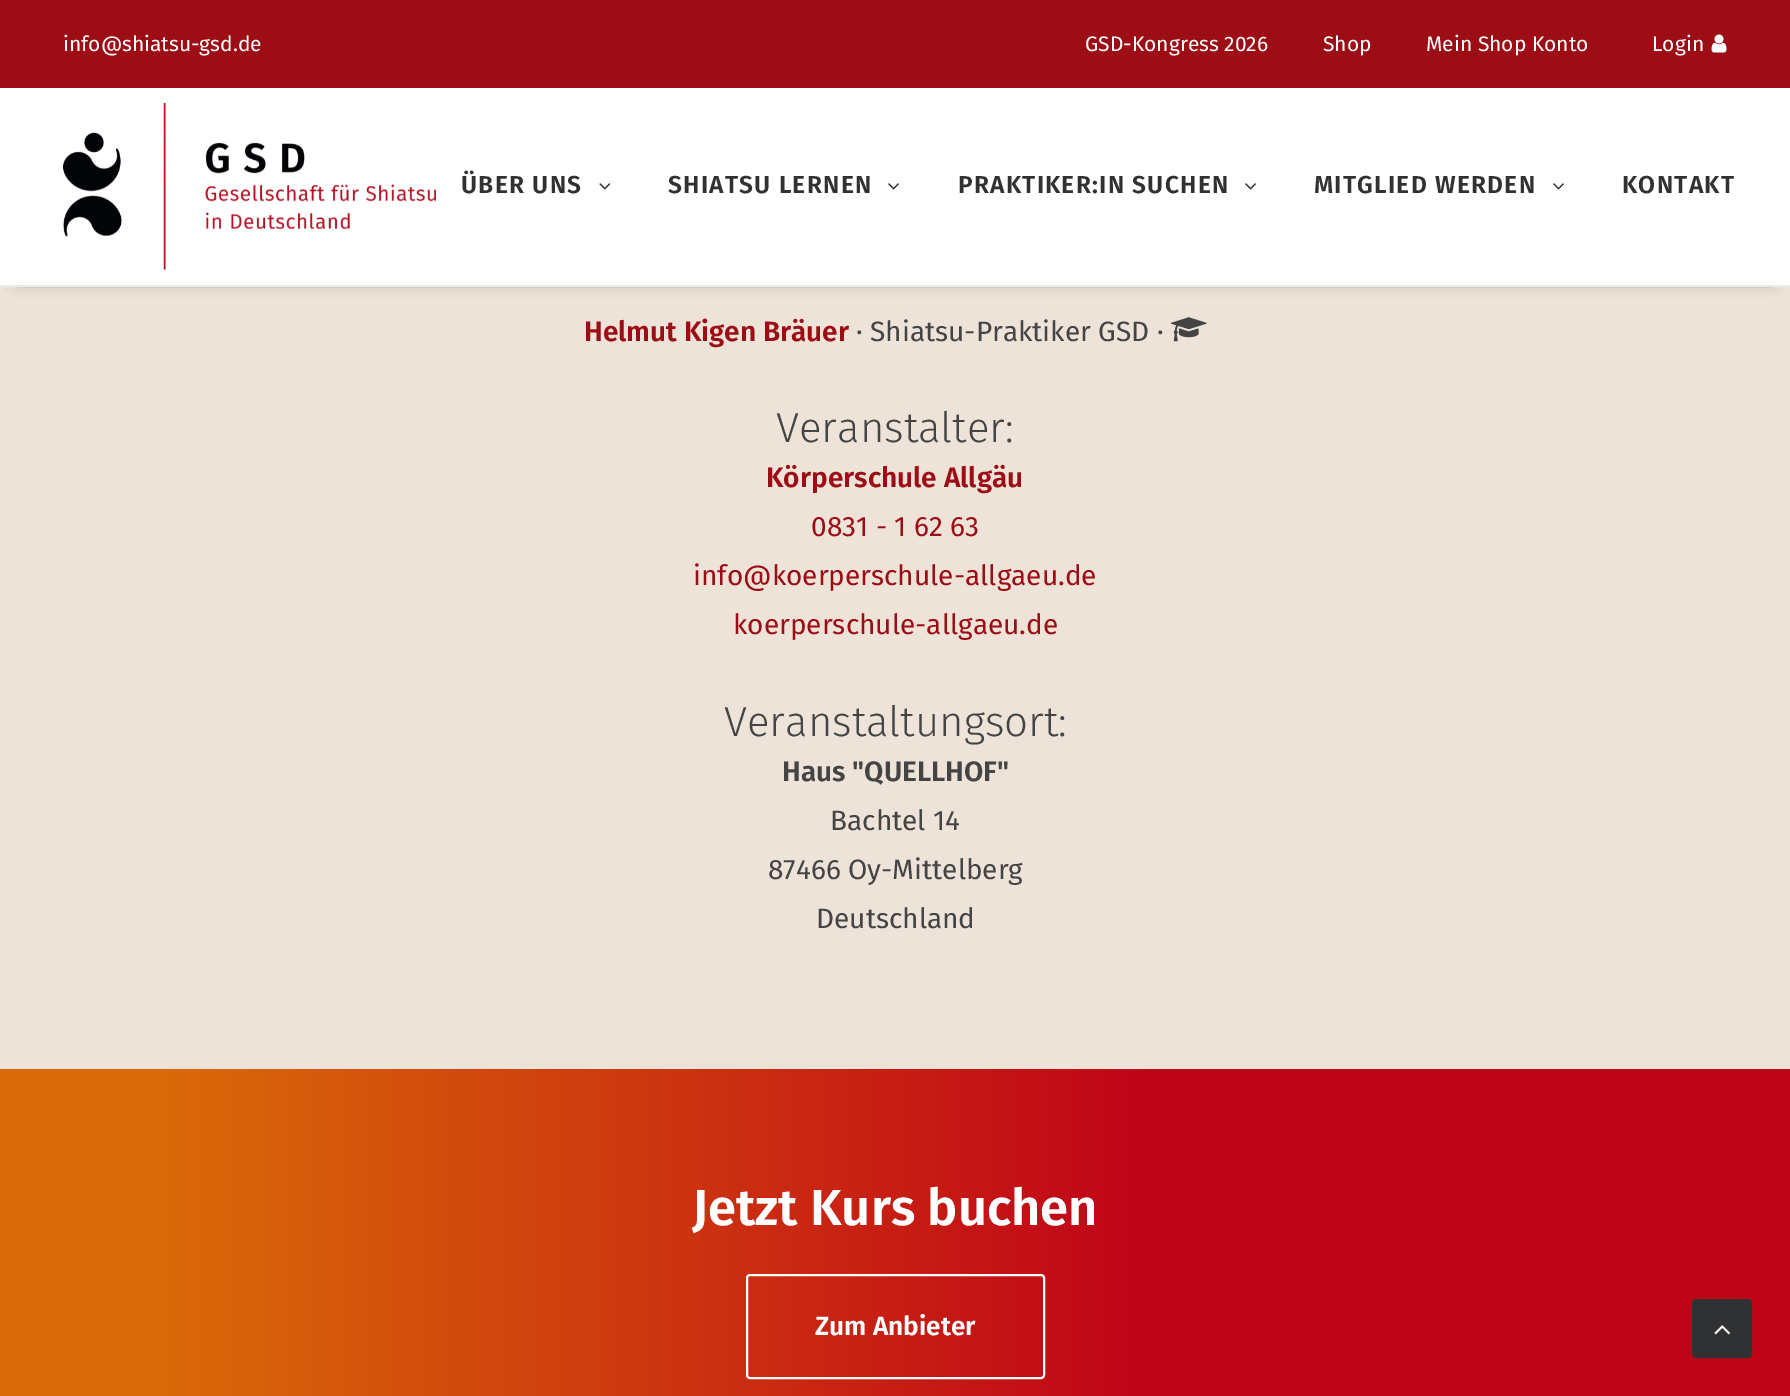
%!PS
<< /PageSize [1790 1396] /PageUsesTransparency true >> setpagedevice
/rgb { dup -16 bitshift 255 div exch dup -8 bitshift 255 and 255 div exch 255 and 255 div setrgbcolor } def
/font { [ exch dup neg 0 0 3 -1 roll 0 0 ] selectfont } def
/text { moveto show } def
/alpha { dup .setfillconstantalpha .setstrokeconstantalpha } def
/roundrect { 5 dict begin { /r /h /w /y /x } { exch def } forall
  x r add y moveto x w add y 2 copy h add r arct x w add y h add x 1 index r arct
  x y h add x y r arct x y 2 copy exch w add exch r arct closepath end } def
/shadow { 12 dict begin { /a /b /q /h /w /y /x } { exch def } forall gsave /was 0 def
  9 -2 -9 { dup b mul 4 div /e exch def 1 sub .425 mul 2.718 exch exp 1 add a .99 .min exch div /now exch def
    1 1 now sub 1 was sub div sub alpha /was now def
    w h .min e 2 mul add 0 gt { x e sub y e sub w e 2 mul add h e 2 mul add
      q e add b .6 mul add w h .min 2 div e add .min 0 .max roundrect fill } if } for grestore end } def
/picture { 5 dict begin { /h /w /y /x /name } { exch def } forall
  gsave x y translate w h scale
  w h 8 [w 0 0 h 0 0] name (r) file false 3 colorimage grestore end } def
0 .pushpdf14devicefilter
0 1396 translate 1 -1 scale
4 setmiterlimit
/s1 { /FiraSans-Regular 21 font 16#FFFFFF rgb } def
/s2 { /FiraSans-SemiBold 28 font 16#9D0D16 rgb } def
/s3 { /FiraSans-Regular 28 font 16#444444 rgb } def
/s4 { /FiraSans-Light 42 font 16#444444 rgb } def
/s5 { /FiraSans-Regular 28 font 16#9D0D16 rgb } def
/s6 { /FiraSans-SemiBold 28 font 16#444444 rgb } def
/s7 { /FiraSans-SemiBold 50.75 font 16#FFFFFF rgb } def
/s8 { /FiraSans-SemiBold 26.25 font 16#FFFFFF rgb } def
16#EEE3D8 rgb
0 0 1790 1396 rectfill
16#000000 rgb
18 112 1755 165 0 9 0.6 shadow
16#9D0D16 rgb
0 0 1790 88 rectfill
s1
(info@shiatsu-gsd.de) 63 51 text
(GSD-Kongress 2026) 1085 51 text
(Shop) 1323 51 text
(Mein Shop Konto) 1426 51 text
(Login) 1652 51 text
(pic1.raw) 1711 34 16 19 picture
0 88 1790 197 rectfill
16#EAEAEA rgb
0 285 1790 2 rectfill
(pic2.raw) 63 103 373 167 picture
/FiraSans-SemiBold 24.5 font
16#303133 rgb
461 193 moveto 1.25 0 (ÜBER UNS) ashow
(pic3.raw) 599 183 12 7 picture
668 193 moveto 1.25 0 (SHIATSU LERNEN) ashow
(pic4.raw) 888 183 11 7 picture
958 193 moveto 1.25 0 (PRAKTIKER:IN SUCHEN) ashow
(pic4.raw) 1245 183 11 7 picture
1314 193 moveto 1.25 0 (MITGLIED WERDEN) ashow
(pic4.raw) 1553 183 11 7 picture
1622 193 moveto 1.25 0 (KONTAKT) ashow
s2
(Helmut Kigen Bräuer) 584 341 text
s3
(· Shiatsu-Praktiker GSD ·) 856 341 text
(pic5.raw) 1170 317 37 25 picture
s4
(Veranstalter:) 776 442 text
s2
(Körperschule Allgäu) 766 487 text
s5
(0831 - 1 62 63) 811 536 text
(info@koerperschule-allgaeu.de) 693 585 text
(koerperschule-allgaeu.de) 733 634 text
s4
(Veranstaltungsort:) 724 736 text
s6
(Haus "QUELLHOF") 782 781 text
s3
(Bachtel 14) 830 830 text
(87466 Oy-Mittelberg) 768 879 text
(Deutschland) 816 928 text
gsave 0 1069 moveto 1790 1069 lineto 1790 1396 lineto 0 1396 lineto closepath clip newpath
<< /ShadingType 2 /ColorSpace /DeviceRGB /Coords [0 1283 1790 1283] /Extend [true true] /Function << /FunctionType 3 /Domain [0 1] /Functions [<< /FunctionType 2 /Domain [0 1] /C0 [0.855 0.416 0.035] /C1 [0.855 0.416 0.035] /N 1 >> << /FunctionType 2 /Domain [0 1] /C0 [0.855 0.416 0.035] /C1 [0.753 0.016 0.094] /N 1 >> << /FunctionType 2 /Domain [0 1] /C0 [0.753 0.016 0.094] /C1 [0.753 0.016 0.094] /N 1 >>] /Bounds [0.09 0.64] /Encode [0 1 0 1 0 1] >> >> shfill grestore
s7
(Jetzt Kurs buchen) 692 1225 text
2 setlinewidth
747 1275 297 103 3 roundrect stroke
s8
(Zum Anbieter) 815 1335 text
16#303133 rgb
1693 1300 58 57 3 roundrect gsave fill grestore
stroke
(pic6.raw) 1714 1325 16 10 picture
.poppdf14devicefilter showpage
